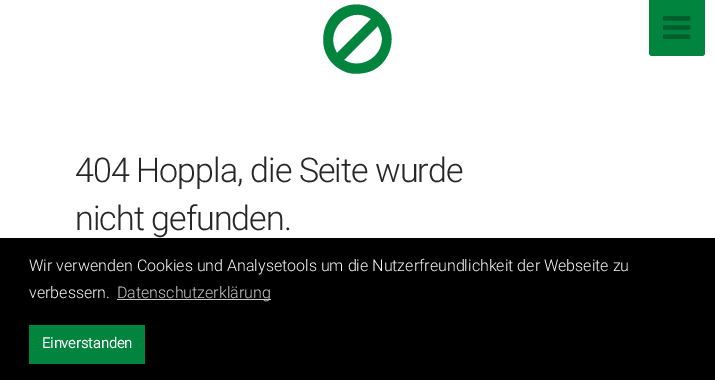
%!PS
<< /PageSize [715 380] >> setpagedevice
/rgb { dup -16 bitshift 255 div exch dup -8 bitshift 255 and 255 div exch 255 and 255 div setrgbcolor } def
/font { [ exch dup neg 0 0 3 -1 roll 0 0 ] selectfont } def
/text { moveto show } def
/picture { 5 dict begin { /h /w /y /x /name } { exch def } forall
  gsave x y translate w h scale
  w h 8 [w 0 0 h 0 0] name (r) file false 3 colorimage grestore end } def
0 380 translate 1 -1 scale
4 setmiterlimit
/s1 { /Roboto-Light 16 font 16#FFFFFF rgb } def
/s2 { /Roboto-Light 16 font 16#CCCCCC rgb } def
/s3 { /Roboto-Bold 14.5 font 16#FFFFFF rgb } def
16#FFFFFF rgb
0 0 715 380 rectfill
16#00843E rgb
649 0 moveto 705 0 lineto 705 53 lineto 705 54.5 703.5 56 702 56 curveto 652 56 lineto 650.5 56 649 54.5 649 53 curveto closepath fill
(pic1.raw) 663 16 28 23 picture
382 39 moveto 382 35 380 30 378 26 curveto 344 60 lineto 360 70 382 58 382 39 curveto closepath 337 53 moveto 371 19 lineto 349 4 323 31 337 53 curveto closepath 389 26 moveto 396 43 388 64 371 71 curveto 363 74 354 75 346 72 curveto 307 57 322 -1 362 5 curveto 374 7 384 15 389 26 curveto closepath fill
/Roboto-Light 34 font
16#262626 rgb
75 182 moveto -0.95 0 (404 Hoppla, die Seite wurde) ashow
75 230 moveto -0.95 0 (nicht gefunden.) ashow
16#000000 rgb
0 238 715 142 rectfill
s1
(Wir verwenden Cookies und Analysetools um die Nutzerfreundlichkeit der Webseite zu) 29 271 text
(verbessern.) 29 298 text
16#CCCCCC rgb
117 299 154 1 rectfill
(Datenschutzerklärung) 117 298 text
16#00843E rgb
29 325 116 39 rectfill
s3
(Einverstanden) 42 348 text
showpage
